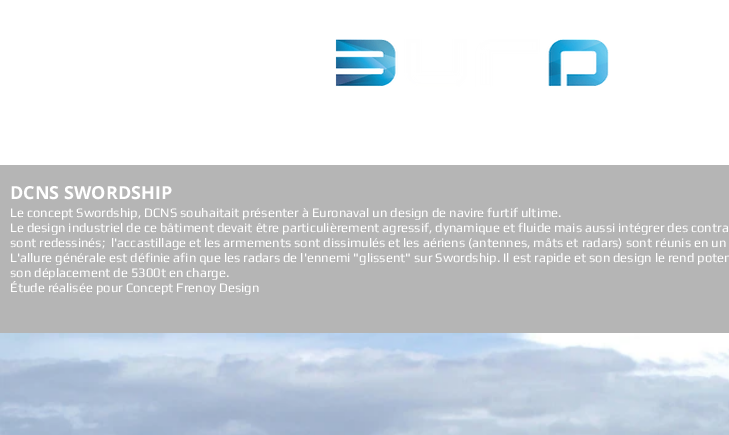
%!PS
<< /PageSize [729 435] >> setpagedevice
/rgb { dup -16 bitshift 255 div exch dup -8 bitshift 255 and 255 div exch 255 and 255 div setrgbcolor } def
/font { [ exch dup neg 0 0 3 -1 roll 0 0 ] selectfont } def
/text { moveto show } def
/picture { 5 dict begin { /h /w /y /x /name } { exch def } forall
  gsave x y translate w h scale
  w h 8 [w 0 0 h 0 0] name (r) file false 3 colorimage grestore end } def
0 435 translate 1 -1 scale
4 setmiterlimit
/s1 { /OpenSans-Bold 18 font 16#FFFFFF rgb } def
/s2 { /Play-Regular 13 font 16#FFFFFF rgb } def
16#FFFFFF rgb
0 0 729 435 rectfill
(pic1.raw) 335 39 274 48 picture
16#B5B5B5 rgb
0 165 729 168 rectfill
s1
(DCNS SWORDSHIP) 10 199 text
s2
(Le concept Swordship, DCNS souhaitait présenter à Euronaval un design de navire furtif ultime.) 10 217 text
(Le design industriel de ce bâtiment devait être particulièrement agressif, dynamique et fluide mais aussi intégrer des contra) 10 232 text
(sont redessinés;  l'accastillage et les armements sont dissimulés et les aériens \(antennes, mâts et radars\) sont réunis en un) 10 247 text
(L'allure générale est définie afin que les radars de l'ennemi "glissent" sur Swordship. Il est rapide et son design le rend poten) 10 262 text
(son déplacement de 5300t en charge.) 10 277 text
(Étude réalisée pour Concept Frenoy Design) 10 292 text
(pic2.raw) 0 333 729 102 picture
showpage
